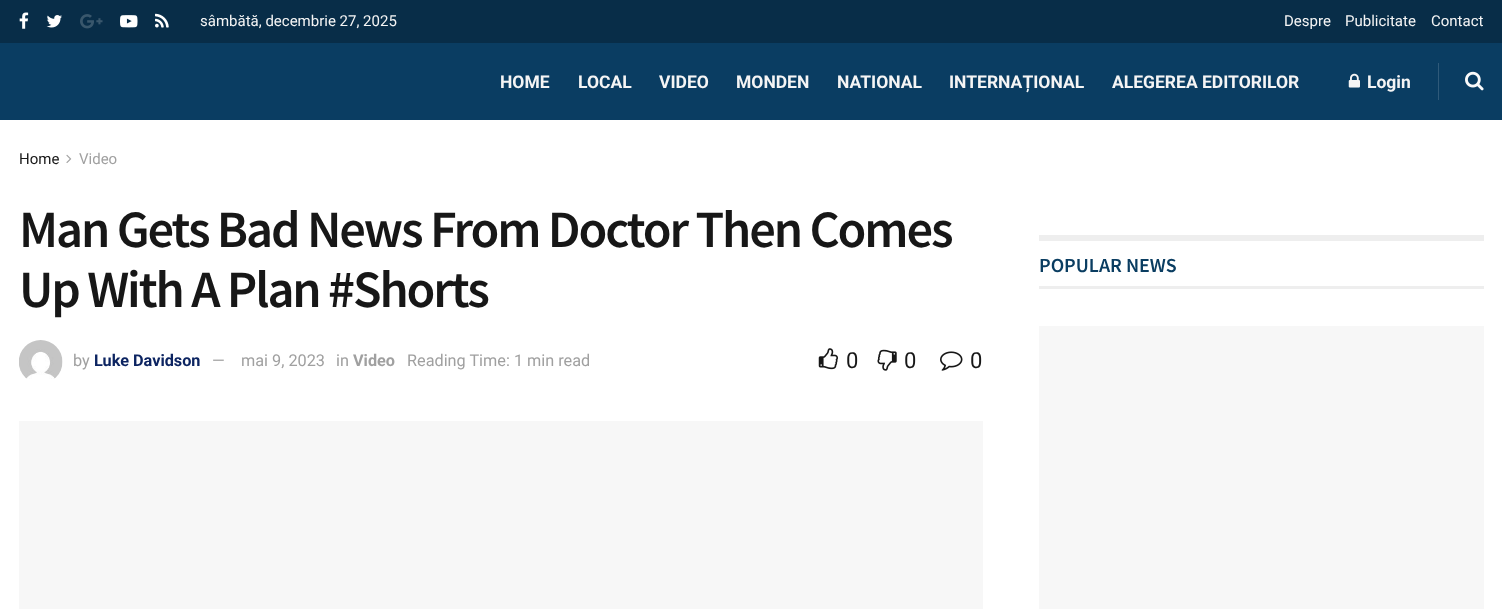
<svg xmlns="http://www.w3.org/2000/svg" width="1502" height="609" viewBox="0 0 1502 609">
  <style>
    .t1 { font: 15px Roboto; fill: #f5f5f5; }
    .t2 { font: bold 17.5px Roboto; fill: #f5f5f5; }
    .t3 { font: 15px Roboto; fill: #171717; }
    .t4 { font: 15px Roboto; fill: #a0a0a0; }
    .t5 { font: 600 52.5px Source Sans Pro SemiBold; letter-spacing: -2.1px; fill: #171717; }
    .t6 { font: 16.25px Roboto; fill: #a0a0a0; }
    .t7 { font: bold 16.25px Roboto; fill: #0c2461; }
    .t8 { font: bold 16.25px Roboto; fill: #a0a0a0; }
    .t9 { font: 22px Roboto; fill: #171717; }
    .t10 { font: 600 20px Source Sans Pro SemiBold; fill: #0a3d61; }
  </style>
  <rect width="100%" height="100%" fill="#fff"/>
  <rect x="0" y="0" width="1502" height="43" fill="#082d48"/>
  <image x="19" y="12" width="10" height="17" href="images/1.png"/>
  <image x="46" y="15" width="16" height="13" href="images/2.png"/>
  <image x="80" y="14" width="23" height="15" href="images/3.png"/>
  <image x="120" y="15" width="18" height="13" href="images/4.png"/>
  <image x="155" y="13" width="14" height="15" href="images/5.png"/>
  <text x="200" y="26" class="t1">sâmbătă, decembrie 27, 2025</text>
  <text x="1284" y="26" class="t1">Despre</text>
  <text x="1345" y="26" class="t1">Publicitate</text>
  <text x="1431" y="26" class="t1">Contact</text>
  <rect x="0" y="43" width="1502" height="77" fill="#0a3d62"/>
  <text x="500" y="88" class="t2">HOME</text>
  <text x="578" y="88" class="t2">LOCAL</text>
  <text x="659" y="88" class="t2">VIDEO</text>
  <text x="736" y="88" class="t2">MONDEN</text>
  <text x="837" y="88" class="t2">NATIONAL</text>
  <text x="949" y="88" class="t2">INTERNAȚIONAL</text>
  <text x="1112" y="88" class="t2">ALEGEREA EDITORILOR</text>
  <image x="1348" y="73" width="12" height="15" href="images/6.png"/>
  <text x="1367" y="88" class="t2">Login</text>
  <rect x="1438" y="63" width="1" height="37" fill="#2f5a7a"/>
  <image x="1465" y="71" width="19" height="20" href="images/7.png"/>
  <text x="19" y="164" class="t3">Home</text>
  <image x="66" y="154" width="6" height="9" href="images/8.png"/>
  <text x="79" y="164" class="t4">Video</text>
  <text x="19" y="247" class="t5">Man Gets Bad News From Doctor Then Comes</text>
  <text x="19" y="307" class="t5">Up With A Plan #Shorts</text>
  <image x="19" y="340" width="44" height="39" href="images/9.png"/>
  <text x="73" y="366" class="t6">by</text>
  <text x="94" y="366" class="t7">Luke Davidson</text>
  <text x="212" y="366" class="t6">—</text>
  <text x="241" y="366" class="t6">mai 9, 2023</text>
  <text x="336" y="366" class="t6">in</text>
  <text x="353" y="366" class="t8">Video</text>
  <text x="407" y="366" class="t6">Reading Time: 1 min read</text>
  <image x="818" y="348" width="20" height="22" href="images/10.png"/>
  <text x="846" y="368" class="t9">0</text>
  <image x="877" y="349" width="20" height="22" href="images/11.png"/>
  <text x="904" y="368" class="t9">0</text>
  <image x="940" y="351" width="23" height="20" href="images/12.png"/>
  <text x="970" y="368" class="t9">0</text>
  <rect x="19" y="421" width="964" height="188" fill="#f7f7f7"/>
  <rect x="1039" y="235" width="445" height="6" fill="#eee"/>
  <rect x="1039" y="286" width="445" height="3" fill="#eee"/>
  <text x="1039" y="272" class="t10">POPULAR NEWS</text>
  <rect x="1039" y="326" width="445" height="283" fill="#f7f7f7"/>
</svg>
